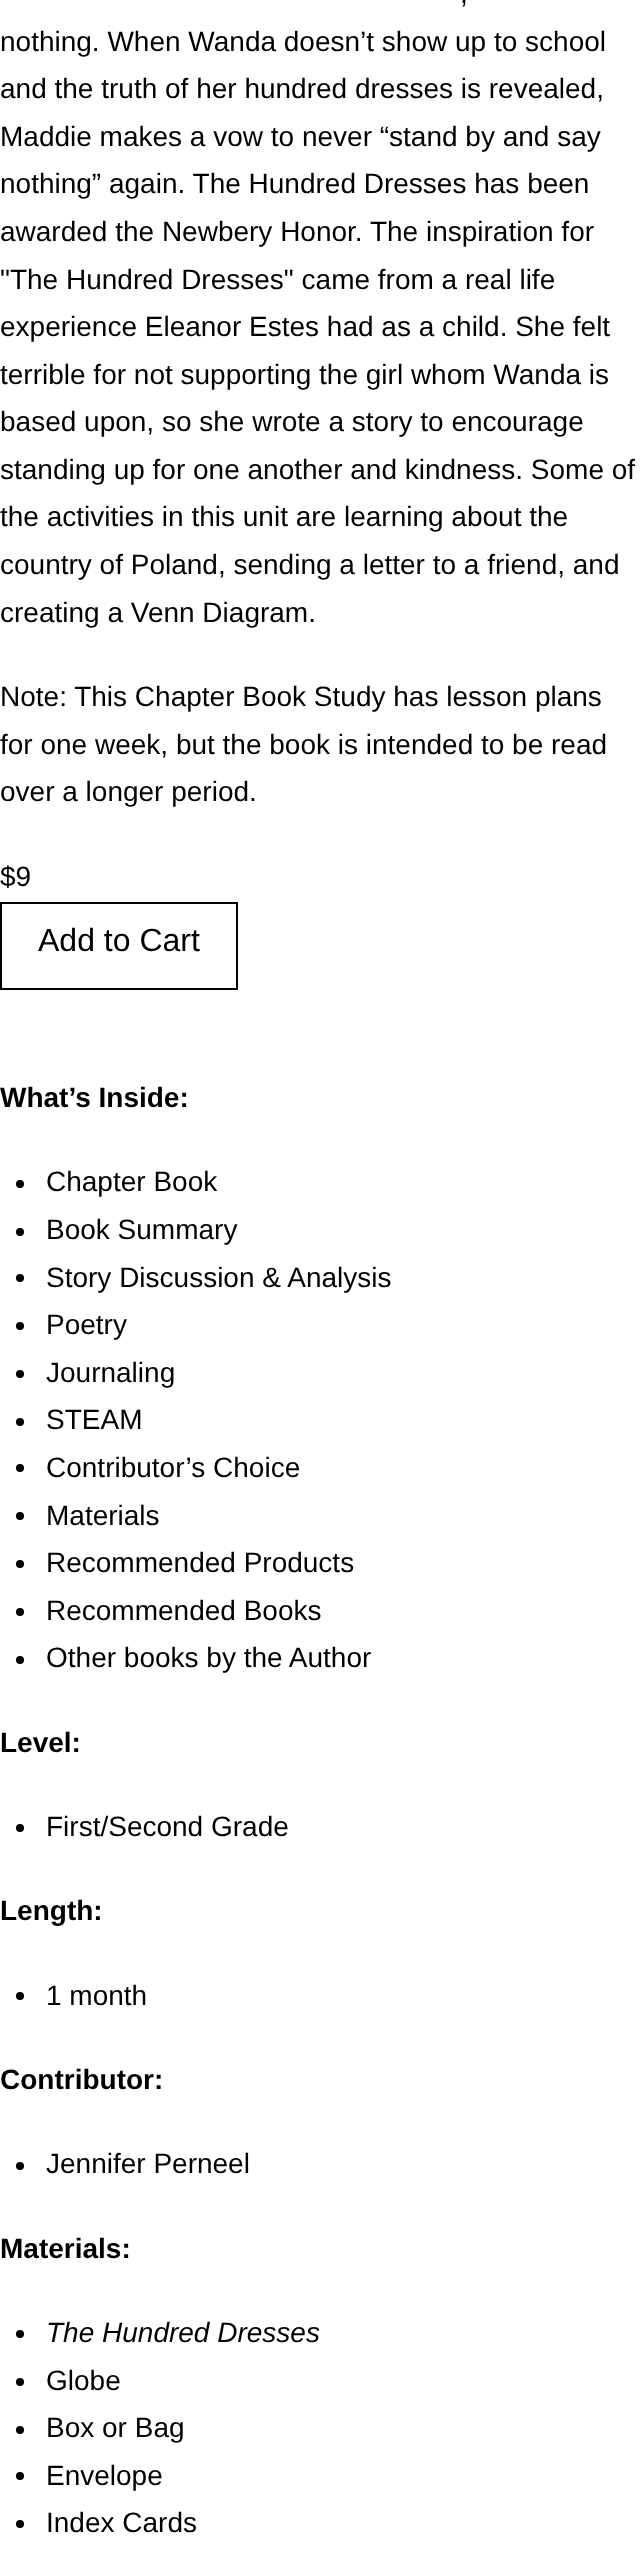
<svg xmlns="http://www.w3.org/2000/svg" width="641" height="2557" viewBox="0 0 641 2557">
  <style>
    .t1 { font: 28px Liberation Sans; fill: #000; }
    .t2 { font: 32px Liberation Sans; fill: #000; }
    .t3 { font: bold 28px Liberation Sans; fill: #000; }
    .t4 { font: italic 28px Liberation Sans; fill: #000; }
  </style>
  <rect width="100%" height="100%" fill="#fff"/>
  <text x="460" y="3" class="t1">,</text>
  <text x="0" y="51" class="t1">nothing. When Wanda doesn’t show up to school</text>
  <text x="0" y="98" class="t1">and the truth of her hundred dresses is revealed,</text>
  <text x="0" y="146" class="t1">Maddie makes a vow to never “stand by and say</text>
  <text x="0" y="193" class="t1">nothing” again. The Hundred Dresses has been</text>
  <text x="0" y="241" class="t1">awarded the Newbery Honor. The inspiration for</text>
  <text x="0" y="289" class="t1">"The Hundred Dresses" came from a real life</text>
  <text x="0" y="336" class="t1">experience Eleanor Estes had as a child. She felt</text>
  <text x="0" y="384" class="t1">terrible for not supporting the girl whom Wanda is</text>
  <text x="0" y="431" class="t1">based upon, so she wrote a story to encourage</text>
  <text x="0" y="479" class="t1">standing up for one another and kindness. Some of</text>
  <text x="0" y="526" class="t1">the activities in this unit are learning about the</text>
  <text x="0" y="574" class="t1">country of Poland, sending a letter to a friend, and</text>
  <text x="0" y="622" class="t1">creating a Venn Diagram.</text>
  <text x="0" y="706" class="t1">Note: This Chapter Book Study has lesson plans</text>
  <text x="0" y="754" class="t1">for one week, but the book is intended to be read</text>
  <text x="0" y="801" class="t1">over a longer period.</text>
  <text x="0" y="886" class="t1">$9</text>
  <rect x="1" y="903" width="236" height="86" fill="none" stroke="#000" stroke-width="2"/>
  <text x="38" y="951" class="t2">Add to Cart</text>
  <text x="0" y="1107" class="t3">What’s Inside:</text>
  <circle cx="20" cy="1184" r="4" fill="#000"/>
  <text x="46" y="1191" class="t1">Chapter Book</text>
  <circle cx="20" cy="1232" r="4" fill="#000"/>
  <text x="46" y="1239" class="t1">Book Summary</text>
  <circle cx="20" cy="1278" r="4" fill="#000"/>
  <text x="46" y="1287" class="t1">Story Discussion &amp; Analysis</text>
  <circle cx="20" cy="1326" r="4" fill="#000"/>
  <text x="46" y="1334" class="t1">Poetry</text>
  <circle cx="20" cy="1374" r="4" fill="#000"/>
  <text x="46" y="1382" class="t1">Journaling</text>
  <circle cx="20" cy="1422" r="4" fill="#000"/>
  <text x="46" y="1429" class="t1">STEAM</text>
  <circle cx="20" cy="1468" r="4" fill="#000"/>
  <text x="46" y="1477" class="t1">Contributor’s Choice</text>
  <circle cx="20" cy="1516" r="4" fill="#000"/>
  <text x="46" y="1525" class="t1">Materials</text>
  <circle cx="20" cy="1564" r="4" fill="#000"/>
  <text x="46" y="1572" class="t1">Recommended Products</text>
  <circle cx="20" cy="1612" r="4" fill="#000"/>
  <text x="46" y="1620" class="t1">Recommended Books</text>
  <circle cx="20" cy="1660" r="4" fill="#000"/>
  <text x="46" y="1667" class="t1">Other books by the Author</text>
  <text x="0" y="1752" class="t3">Level:</text>
  <circle cx="20" cy="1828" r="4" fill="#000"/>
  <text x="46" y="1836" class="t1">First/Second Grade</text>
  <text x="0" y="1920" class="t3">Length:</text>
  <circle cx="20" cy="1996" r="4" fill="#000"/>
  <text x="46" y="2005" class="t1">1 month</text>
  <text x="0" y="2089" class="t3">Contributor:</text>
  <circle cx="20" cy="2166" r="4" fill="#000"/>
  <text x="46" y="2173" class="t1">Jennifer Perneel</text>
  <text x="0" y="2258" class="t3">Materials:</text>
  <circle cx="20" cy="2334" r="4" fill="#000"/>
  <text x="46" y="2342" class="t4">The Hundred Dresses</text>
  <circle cx="20" cy="2382" r="4" fill="#000"/>
  <text x="46" y="2390" class="t1">Globe</text>
  <circle cx="20" cy="2430" r="4" fill="#000"/>
  <text x="46" y="2437" class="t1">Box or Bag</text>
  <circle cx="20" cy="2476" r="4" fill="#000"/>
  <text x="46" y="2485" class="t1">Envelope</text>
  <circle cx="20" cy="2524" r="4" fill="#000"/>
  <text x="46" y="2532" class="t1">Index Cards</text>
</svg>
